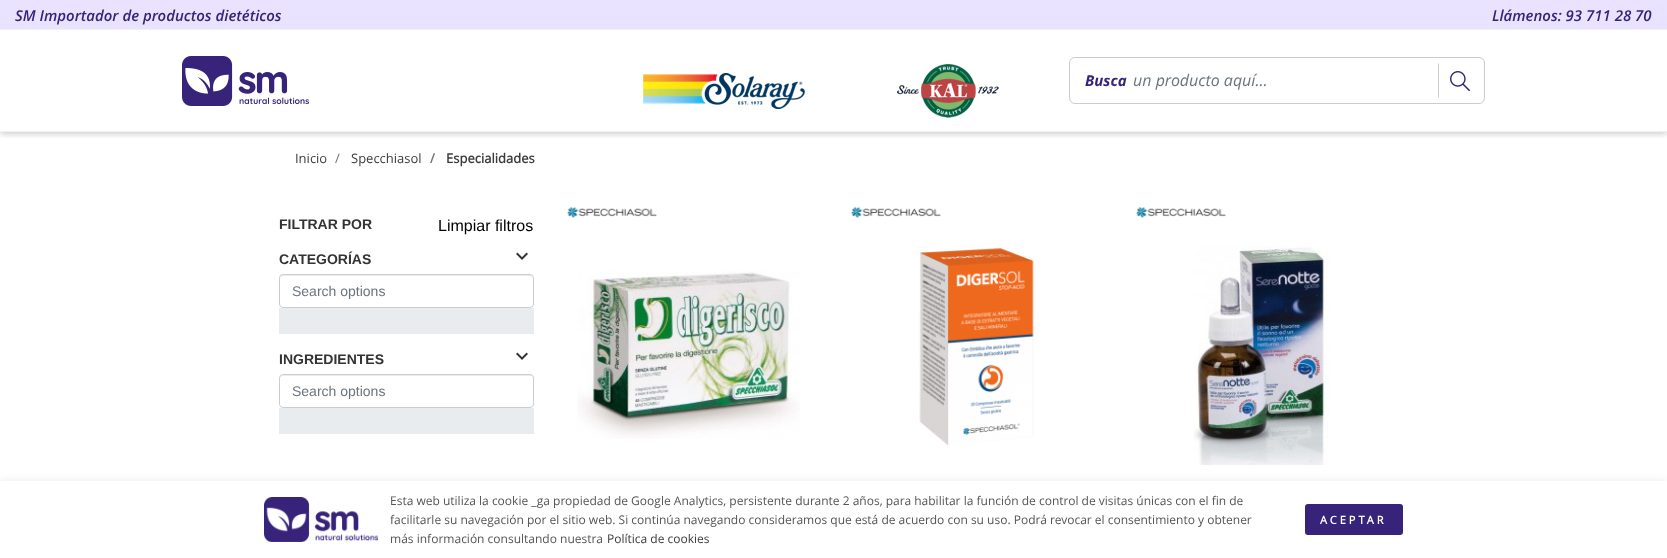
<svg xmlns="http://www.w3.org/2000/svg" width="1667" height="558" viewBox="0 0 1667 558">
  <style>
    .t1 { font: italic 600 15px Open Sans; fill: #37247a; }
    .t2 { font: italic bold 15px Open Sans; fill: #37247a; }
    .t3 { font: italic 16px Open Sans; fill: #6c757d; }
    .t4 { font: 13px Open Sans; fill: #3b3b3b; }
    .t5 { font: 13px Open Sans; fill: #6c757d; }
    .t6 { font: bold 13px Open Sans; fill: #6c757d; }
    .t7 { font: bold 13px Open Sans; fill: #3b3b3b; }
    .t8 { font: bold 14px Liberation Sans; fill: #333; }
    .t9 { font: 16px Liberation Sans; fill: #000; }
    .t10 { font: 14px Liberation Sans; fill: #6c757d; }
    .t11 { font: 12px Open Sans; fill: #545655; }
    .t12 { font: 12px Open Sans; fill: #3b3b3b; }
    .t13 { font: bold 11px Open Sans; letter-spacing: 3px; fill: #fff; }
  </style>
  <defs>
    <clipPath id="clip1"><rect x="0" y="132" width="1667" height="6"/></clipPath>
  </defs>
  <rect width="100%" height="100%" fill="#fff"/>
  <g clip-path="url(#clip1)">
    <rect x="0" y="2" width="1667" height="132" fill="#00000033" filter="blur(3px)"/>
  </g>
  <rect x="0" y="0" width="1667" height="29" fill="#e9e3ff"/>
  <rect x="0" y="29" width="1667" height="1" fill="#f1f1f1"/>
  <text x="15" y="21" class="t1">SM Importador de productos dietéticos</text>
  <text x="1492" y="21" class="t1">Llámenos: 93 711 28 70</text>
  <rect x="0" y="131" width="1667" height="1" fill="#f1f1f1"/>
  <image x="182" y="56" width="127" height="50" href="images/1.png"/>
  <image x="643" y="73" width="162" height="36" href="images/2.png"/>
  <image x="897" y="64" width="102" height="54" href="images/3.png"/>
  <rect x="1069.5" y="57.5" width="415" height="46" rx="5.5" fill="none" stroke="#ccc"/>
  <text x="1085" y="86" class="t2">Busca</text>
  <text x="1133" y="86" class="t3">un producto aquí...</text>
  <path d="M1438 98V63L1439 64V97Z" fill="#ccc"/>
  <image x="1450" y="71" width="20" height="20" href="images/4.png"/>
  <text x="295" y="163" class="t4">Inicio</text>
  <text x="335" y="163" class="t5">/</text>
  <text x="351" y="163" class="t4">Specchiasol</text>
  <text x="430" y="163" class="t6">/</text>
  <text x="446" y="163" class="t7">Especialidades</text>
  <text x="279" y="229" class="t8">FILTRAR POR</text>
  <text x="438" y="231" class="t9">Limpiar filtros</text>
  <text x="279" y="264" class="t8">CATEGORÍAS</text>
  <image x="516" y="252" width="12" height="8" href="images/5.png"/>
  <path d="M283 276H531L533 277V279C533 277 532 275 530 275H283C281 275 280 277 280 279C280 277 281 276 283 276Z" fill="#ececec"/>
  <rect x="279.5" y="274.5" width="254" height="33" rx="3.5" fill="none" stroke="#ccc"/>
  <text x="292" y="296" class="t10">Search options</text>
  <rect x="279" y="308" width="255" height="26" fill="#e9ecef"/>
  <text x="279" y="364" class="t8">INGREDIENTES</text>
  <image x="516" y="352" width="12" height="8" href="images/5.png"/>
  <path d="M283 376H531L533 377V379C533 377 532 375 530 375H283C281 375 280 377 280 379C280 377 281 376 283 376Z" fill="#ececec"/>
  <rect x="279.5" y="374.5" width="254" height="33" rx="3.5" fill="none" stroke="#ccc"/>
  <text x="292" y="396" class="t10">Search options</text>
  <rect x="279" y="408" width="255" height="26" fill="#e9ecef"/>
  <image x="567" y="207" width="90" height="11" href="images/6.png"/>
  <image x="577" y="271" width="223" height="168" href="images/7.png"/>
  <image x="851" y="207" width="90" height="11" href="images/6.png"/>
  <image x="919" y="248" width="115" height="198" href="images/8.png"/>
  <image x="1136" y="207" width="90" height="11" href="images/6.png"/>
  <image x="1193" y="246" width="136" height="219" href="images/9.png"/>
  <rect x="0" y="482" width="1667" height="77" fill="#0000001a" filter="blur(5px)"/>
  <rect x="0" y="481" width="1667" height="77" fill="#fff"/>
  <image x="264" y="497" width="114" height="45" href="images/10.png"/>
  <text x="390" y="505" class="t11">Esta web utiliza la cookie _ga propiedad de Google Analytics, persistente durante 2 años, para habilitar la función de control de visitas únicas con el fin de</text>
  <text x="390" y="524" class="t11">facilitarle su navegación por el sitio web. Si continúa navegando consideramos que está de acuerdo con su uso. Podrá revocar el consentimiento y obtener</text>
  <text x="390" y="543" class="t11">más información consultando nuestra</text>
  <text x="607" y="543" class="t12">Política de cookies</text>
  <rect x="1305" y="504" width="98" height="31" rx="3" fill="#37247a"/>
  <text x="1320" y="524" class="t13">ACEPTAR</text>
</svg>
